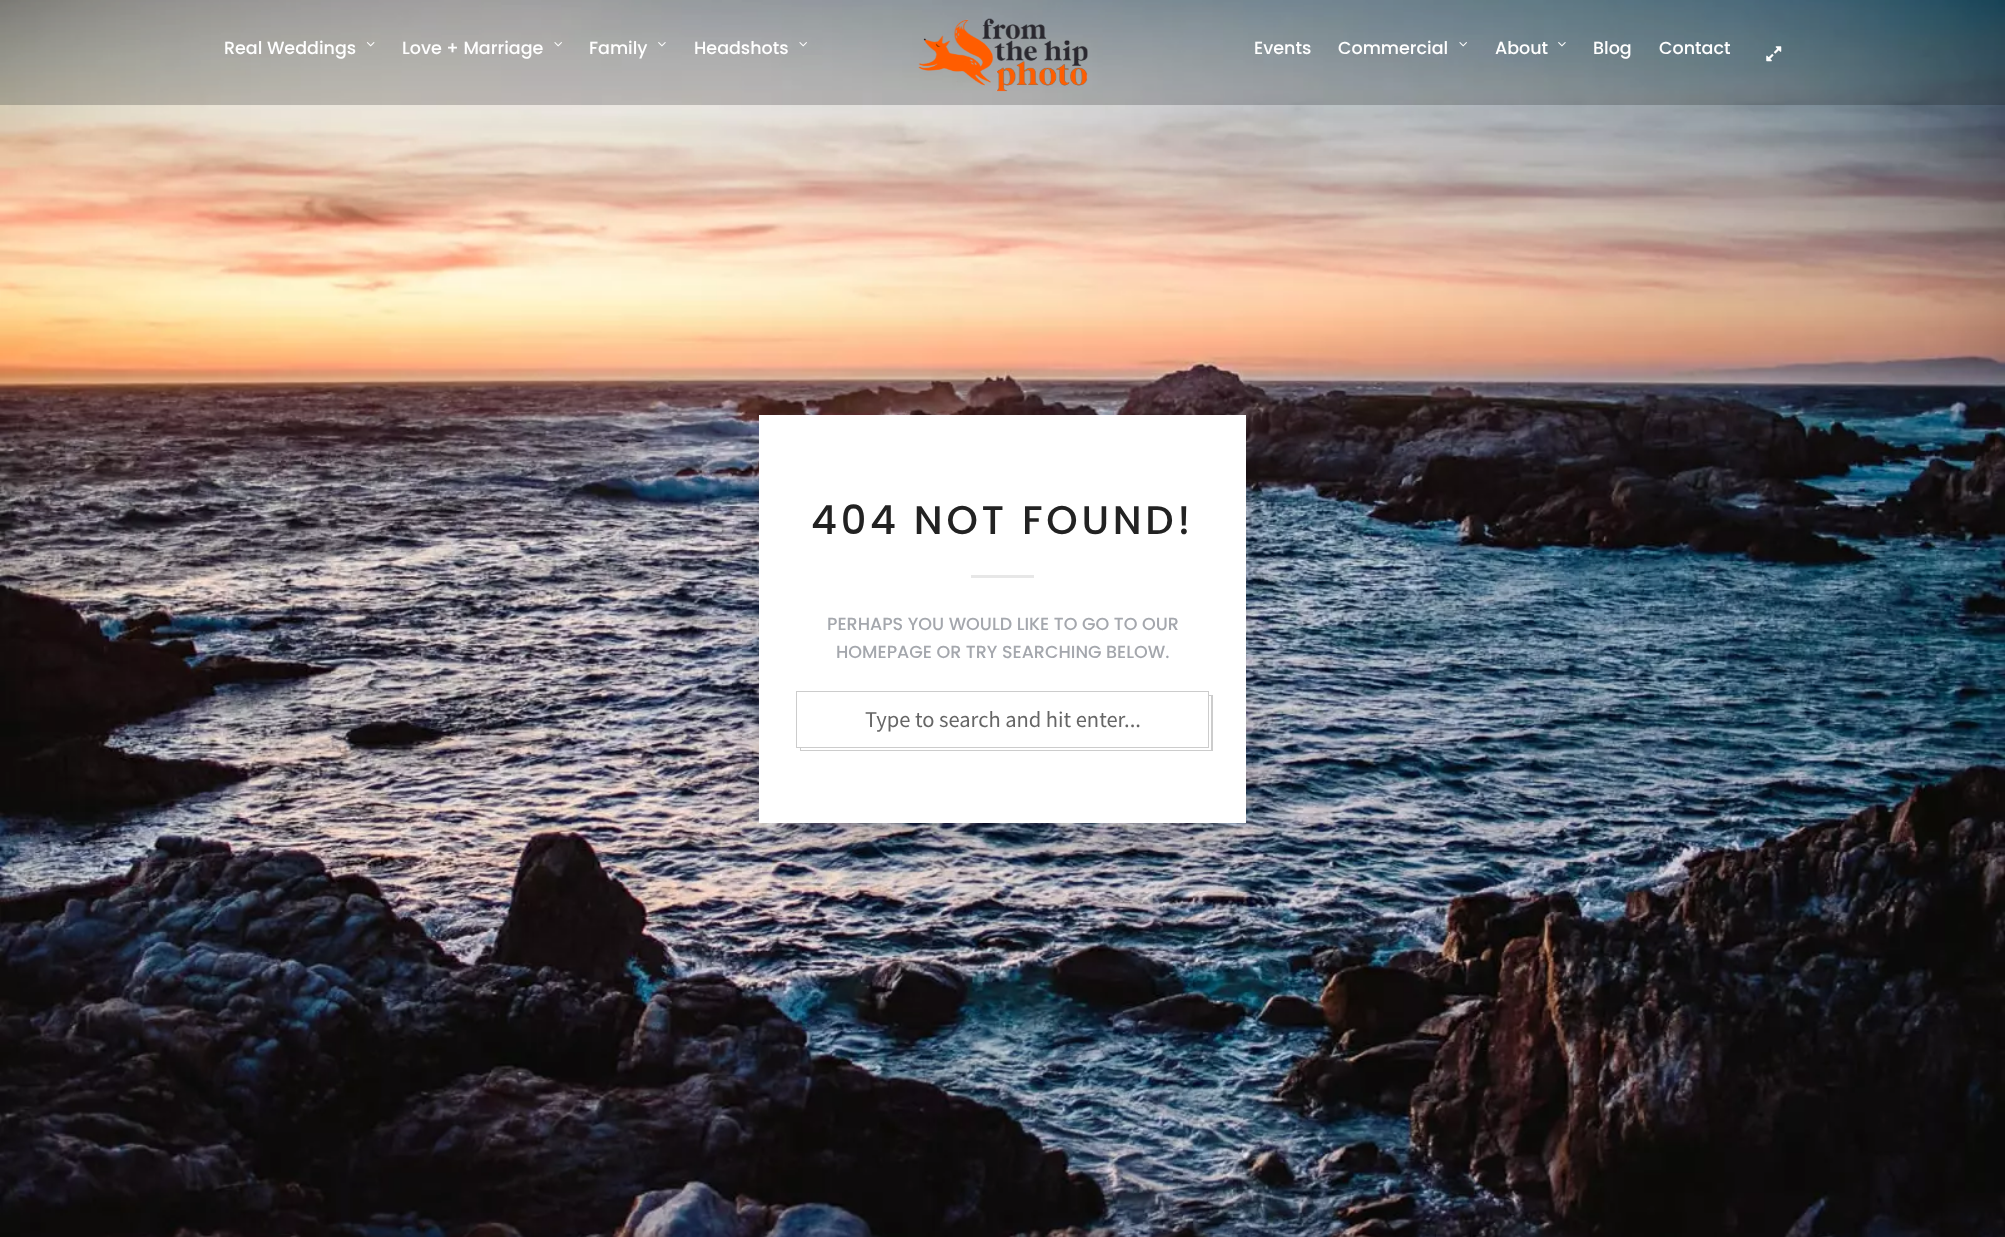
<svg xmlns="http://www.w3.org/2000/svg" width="2005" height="1237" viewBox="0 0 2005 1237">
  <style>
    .t1 { font: 500 17.5px Poppins; fill: #fff; }
    .t2 { font: 500 40px Poppins; letter-spacing: 3.75px; fill: #222; }
    .t3 { font: 500 17.5px Poppins; fill: #a4a7ad; }
    .t4 { font: 22.5px Source Sans Pro; fill: #666; }
  </style>
  <rect width="100%" height="100%" fill="#fff"/>
  <image x="0" y="0" width="2005" height="1237" href="images/9.png"/>
  <rect x="0" y="0" width="2005" height="105" fill="#00000033"/>
  <image x="918" y="18" width="170" height="74" href="images/1.png"/>
  <text x="224" y="54" class="t1">Real Weddings</text>
  <image x="366" y="42" width="9" height="5" href="images/2.png"/>
  <text x="402" y="54" class="t1">Love + Marriage</text>
  <image x="554" y="42" width="8" height="5" href="images/3.png"/>
  <text x="589" y="54" class="t1">Family</text>
  <image x="658" y="42" width="8" height="5" href="images/4.png"/>
  <text x="694" y="54" class="t1">Headshots</text>
  <image x="799" y="42" width="8" height="5" href="images/5.png"/>
  <text x="1254" y="54" class="t1">Events</text>
  <text x="1338" y="54" class="t1">Commercial</text>
  <image x="1459" y="42" width="8" height="5" href="images/6.png"/>
  <text x="1495" y="54" class="t1">About</text>
  <image x="1558" y="42" width="8" height="5" href="images/7.png"/>
  <text x="1593" y="54" class="t1">Blog</text>
  <text x="1659" y="54" class="t1">Contact</text>
  <image x="1766" y="46" width="16" height="16" href="images/8.png"/>
  <rect x="759" y="443" width="487" height="407" fill="#00000026" filter="blur(25px)"/>
  <rect x="759" y="415" width="487" height="408" fill="#fff"/>
  <text x="811" y="534" class="t2">404 NOT FOUND!</text>
  <rect x="971" y="575" width="63" height="3" fill="#e7e7e7"/>
  <text x="827" y="630" class="t3">PERHAPS YOU WOULD LIKE TO GO TO OUR</text>
  <text x="836" y="658" class="t3">HOMEPAGE OR TRY SEARCHING BELOW.</text>
  <path d="M800 748V751H1213V695H1209V748Z" fill="#ccc"/>
  <path d="M801 748V750H1211V696H1209V748Z" fill="#fff"/>
  <rect x="796.5" y="691.5" width="412" height="56" fill="none" stroke="#ccc"/>
  <text x="865" y="727" class="t4">Type to search and hit enter...</text>
</svg>
